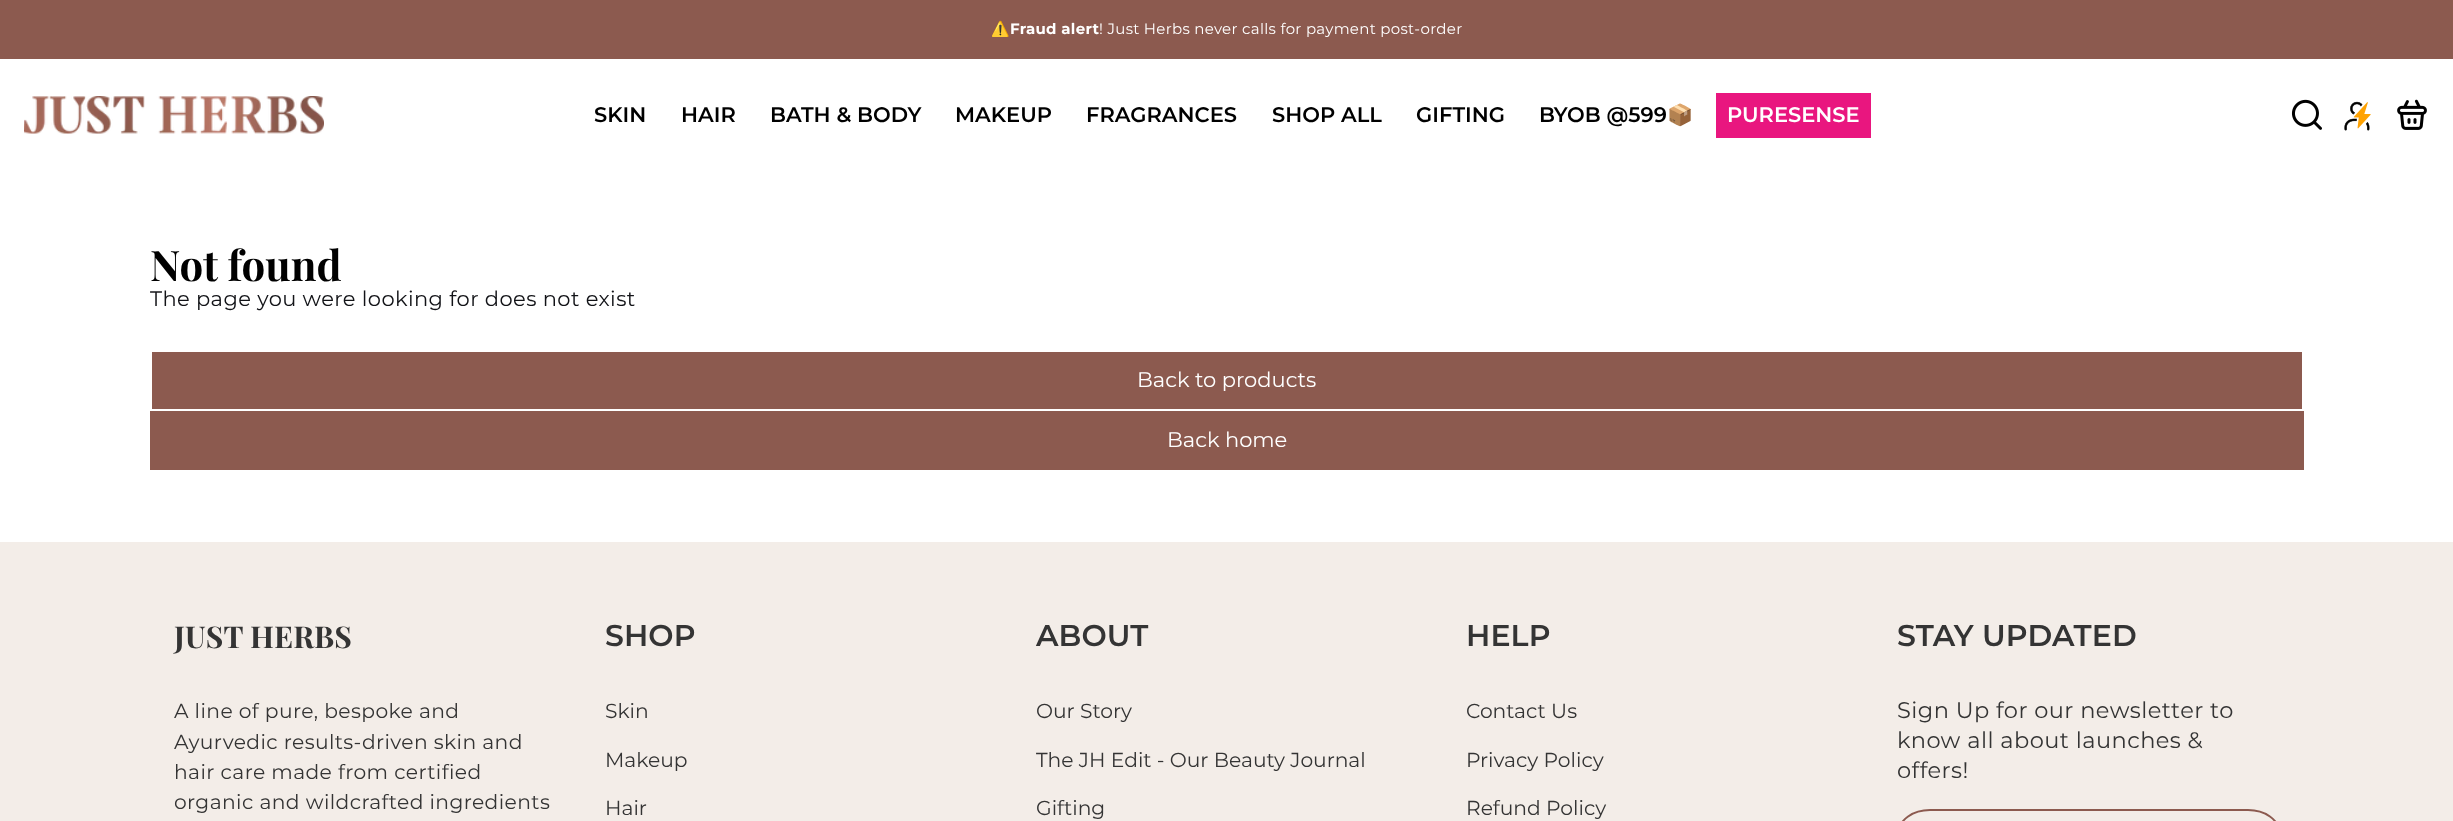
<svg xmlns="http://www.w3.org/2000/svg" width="2453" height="821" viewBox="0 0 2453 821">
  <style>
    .t1 { font: 15px Noto Color Emoji; letter-spacing: 0.3px; fill: #fff; }
    .t2 { font: bold 15px Montserrat; letter-spacing: 0.3px; fill: #fff; }
    .t3 { font: 15px Montserrat; letter-spacing: 0.3px; fill: #fff; }
    .t4 { font: 600 21px Montserrat; fill: #000; }
    .t5 { font: bold 21px Noto Color Emoji; fill: #000; }
    .t6 { font: 600 21px Montserrat; fill: #fff; }
    .t7 { font: bold 42px Playfair Display; fill: #000; }
    .t8 { font: 21px Montserrat; letter-spacing: 0.4px; fill: #121317; }
    .t9 { font: 21px Montserrat; fill: #fff; }
    .t10 { font: bold 30px Playfair Display; letter-spacing: 0.1px; fill: #343434; }
    .t11 { font: 20.25px Montserrat; letter-spacing: 0.4px; fill: #343434; }
    .t12 { font: 600 30px Montserrat; letter-spacing: 0.1px; fill: #343434; }
    .t13 { font: 20.25px Montserrat; fill: #343434; }
    .t14 { font: 22.5px Montserrat; letter-spacing: 0.45px; fill: #343434; }
  </style>
  <defs>
    <clipPath id="clip1"><rect x="992" y="3" width="471" height="53"/></clipPath>
  </defs>
  <rect width="100%" height="100%" fill="#fff"/>
  <rect x="0" y="0" width="2453" height="59" fill="#8c5a4f"/>
  <g clip-path="url(#clip1)">
    <text x="991" y="34" class="t1">⚠️</text>
  </g>
  <text x="1010" y="34" class="t2">Fraud alert</text>
  <text x="1099" y="34" class="t3">! Just Herbs never calls for payment post-order</text>
  <image x="24" y="96" width="300" height="38" href="images/1.png"/>
  <text x="594" y="122" class="t4">SKIN</text>
  <text x="681" y="122" class="t4">HAIR</text>
  <text x="770" y="122" class="t4">BATH &amp; BODY</text>
  <text x="955" y="122" class="t4">MAKEUP</text>
  <text x="1086" y="122" class="t4">FRAGRANCES</text>
  <text x="1272" y="122" class="t4">SHOP ALL</text>
  <text x="1416" y="122" class="t4">GIFTING</text>
  <text x="1539" y="122" class="t4">BYOB @599</text>
  <text x="1667" y="122" class="t5">📦</text>
  <rect x="1716" y="93" width="155" height="45" fill="#e9167f"/>
  <text x="1727" y="122" class="t6">PURESENSE</text>
  <image x="2291" y="99" width="31" height="31" href="images/2.png"/>
  <image x="2344" y="101" width="27" height="30" href="images/3.png"/>
  <image x="2397" y="99" width="30" height="31" href="images/4.png"/>
  <text x="150" y="281" class="t7">Not found</text>
  <text x="150" y="306" class="t8">The page you were looking for does not exist</text>
  <rect x="152" y="352" width="2150" height="57" fill="#8c5a4f"/>
  <text x="1137" y="387" class="t9">Back to products</text>
  <rect x="150" y="411" width="2154" height="59" fill="#8c5a4f"/>
  <text x="1167" y="447" class="t9">Back home</text>
  <rect x="0" y="542" width="2453" height="279" fill="#f3ede8"/>
  <text x="174" y="648" class="t10">JUST HERBS</text>
  <text x="174" y="718" class="t11">A line of pure, bespoke and</text>
  <text x="174" y="749" class="t11">Ayurvedic results-driven skin and</text>
  <text x="174" y="779" class="t11">hair care made from certified</text>
  <text x="174" y="809" class="t11">organic and wildcrafted ingredients</text>
  <text x="605" y="646" class="t12">SHOP</text>
  <text x="605" y="718" class="t13">Skin</text>
  <text x="605" y="767" class="t13">Makeup</text>
  <text x="605" y="815" class="t13">Hair</text>
  <text x="1036" y="646" class="t12">ABOUT</text>
  <text x="1036" y="718" class="t13">Our Story</text>
  <text x="1036" y="767" class="t13">The JH Edit - Our Beauty Journal</text>
  <text x="1036" y="815" class="t13">Gifting</text>
  <text x="1466" y="646" class="t12">HELP</text>
  <text x="1466" y="718" class="t13">Contact Us</text>
  <text x="1466" y="767" class="t13">Privacy Policy</text>
  <text x="1466" y="815" class="t13">Refund Policy</text>
  <text x="1897" y="646" class="t12">STAY UPDATED</text>
  <text x="1897" y="718" class="t14">Sign Up for our newsletter to</text>
  <text x="1897" y="748" class="t14">know all about launches &amp;</text>
  <text x="1897" y="778" class="t14">offers!</text>
  <rect x="1899" y="810" width="380" height="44" rx="31" fill="none" stroke="#8c5a4f" stroke-width="2"/>
</svg>
